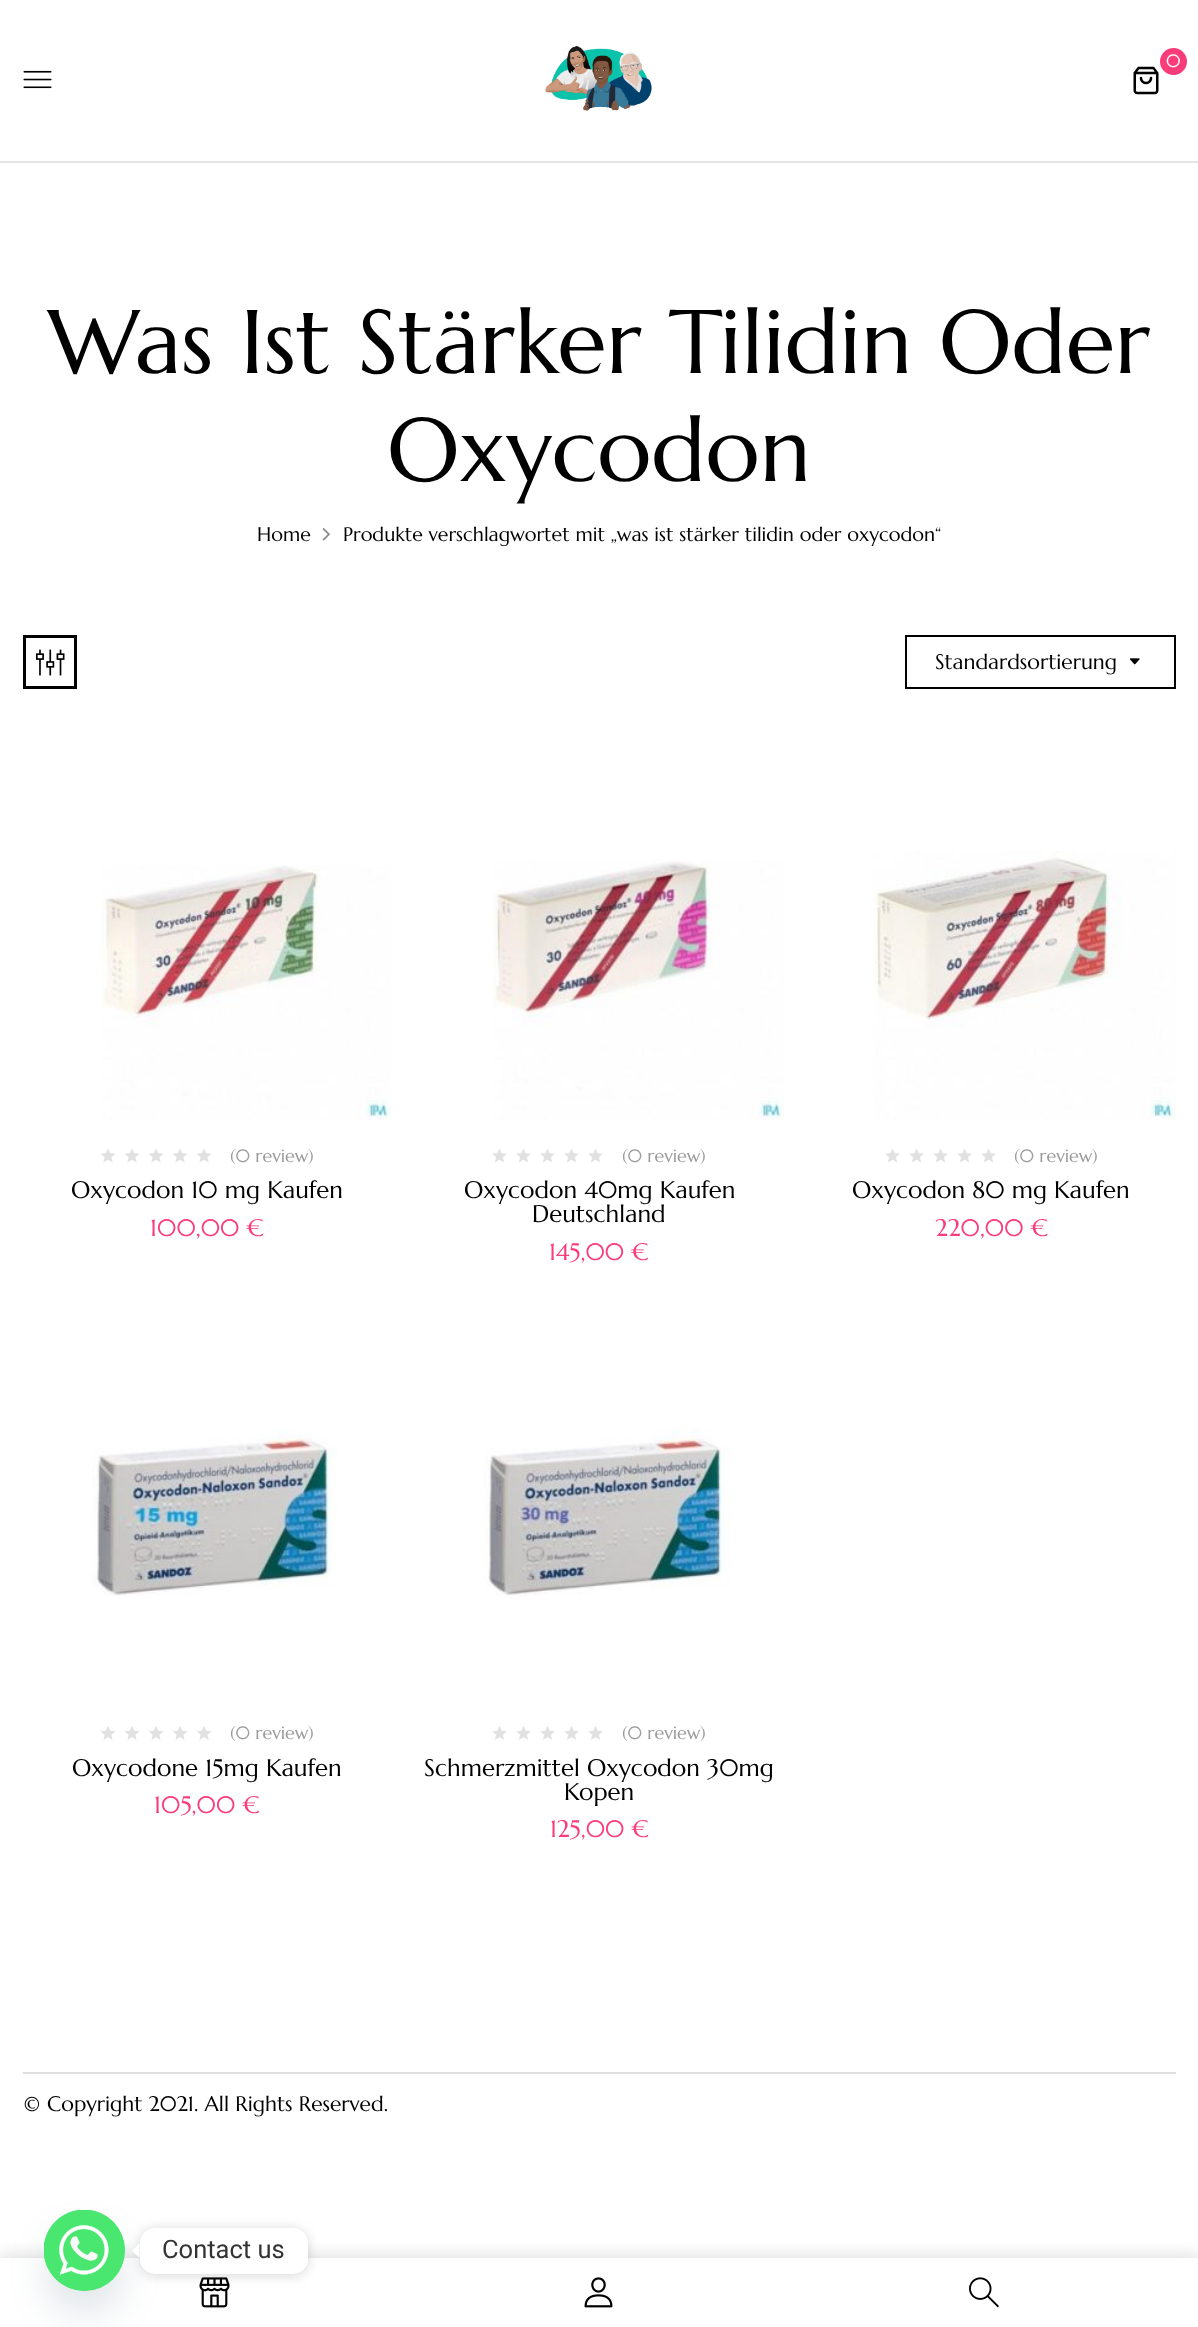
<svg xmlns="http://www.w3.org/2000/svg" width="1198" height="2327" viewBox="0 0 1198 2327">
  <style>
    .t1 { font: 18px Marcellus; fill: #fff; }
    .t2 { font: 90px Marcellus; fill: #000; }
    .t3 { font: 19.5px Marcellus; fill: #000; }
    .t4 { font: 21px Marcellus; fill: #000; }
    .t5 { font: 18px Marcellus; fill: #9b9b9b; }
    .t6 { font: 24px Marcellus; fill: #000; }
    .t7 { font: 24px Marcellus; fill: #fa3c7a; }
    .t8 { font: 25.5px Roboto; fill: #333; }
  </style>
  <defs>
    <clipPath id="clip1"><rect x="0" y="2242" width="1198" height="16"/></clipPath>
  </defs>
  <rect width="100%" height="100%" fill="#fff"/>
  <rect x="0" y="161" width="1198" height="2" fill="#e5e5e5"/>
  <image x="545" y="46" width="107" height="65" href="images/1.png"/>
  <circle cx="1173.5" cy="61.5" r="13.5" fill="#fa3c7a"/>
  <text x="1166" y="67" class="t1">0</text>
  <image x="1133" y="66" width="26" height="29" href="images/2.png"/>
  <image x="23" y="70" width="29" height="19" href="images/3.png"/>
  <g clip-path="url(#clip1)">
    <rect x="-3" y="2256" width="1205" height="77" fill="#8f8f8f4d" filter="blur(9px)"/>
  </g>
  <image x="199" y="2277" width="31" height="31" href="images/4.png"/>
  <image x="584" y="2277" width="29" height="31" href="images/5.png"/>
  <image x="969" y="2277" width="30" height="31" href="images/6.png"/>
  <text x="48" y="373" class="t2">Was Ist Stärker Tilidin Oder</text>
  <text x="387" y="481" class="t2">Oxycodon</text>
  <text x="257" y="541" class="t3">Home</text>
  <image x="322" y="528" width="8" height="13" href="images/7.png"/>
  <text x="343" y="541" class="t3">Produkte verschlagwortet mit „was ist stärker tilidin oder oxycodon“</text>
  <rect x="24.5" y="636.5" width="51" height="51" fill="none" stroke="#000" stroke-width="3"/>
  <image x="36" y="649" width="29" height="27" href="images/8.png"/>
  <rect x="906" y="636" width="269" height="52" fill="none" stroke="#000" stroke-width="2"/>
  <text x="935" y="669" class="t4">Standardsortierung</text>
  <image x="1129" y="658" width="11" height="7" href="images/9.png"/>
  <image x="101" y="865" width="290" height="255" href="images/10.png"/>
  <image x="101" y="1148" width="110" height="15" href="images/11.png"/>
  <text x="230" y="1162" class="t5">(0 review)</text>
  <text x="71" y="1198" class="t6">Oxycodon 10 mg Kaufen</text>
  <text x="150" y="1236" class="t7">100,00 €</text>
  <image x="493" y="860" width="291" height="260" href="images/12.png"/>
  <image x="492" y="1148" width="111" height="15" href="images/13.png"/>
  <text x="622" y="1162" class="t5">(0 review)</text>
  <text x="464" y="1198" class="t6">Oxycodon 40mg Kaufen</text>
  <text x="532" y="1222" class="t6">Deutschland</text>
  <text x="549" y="1260" class="t7">145,00 €</text>
  <image x="873" y="851" width="303" height="269" href="images/14.png"/>
  <image x="885" y="1148" width="111" height="15" href="images/13.png"/>
  <text x="1014" y="1162" class="t5">(0 review)</text>
  <text x="852" y="1198" class="t6">Oxycodon 80 mg Kaufen</text>
  <text x="935" y="1236" class="t7">220,00 €</text>
  <image x="91" y="1430" width="246" height="166" href="images/15.png"/>
  <image x="101" y="1726" width="111" height="14" href="images/16.png"/>
  <text x="230" y="1739" class="t5">(0 review)</text>
  <text x="72" y="1776" class="t6">Oxycodone 15mg Kaufen</text>
  <text x="154" y="1813" class="t7">105,00 €</text>
  <image x="483" y="1428" width="247" height="168" href="images/17.png"/>
  <image x="492" y="1726" width="111" height="14" href="images/18.png"/>
  <text x="622" y="1739" class="t5">(0 review)</text>
  <text x="424" y="1776" class="t6">Schmerzmittel Oxycodon 30mg</text>
  <text x="564" y="1800" class="t6">Kopen</text>
  <text x="550" y="1837" class="t7">125,00 €</text>
  <rect x="23" y="2072" width="1153" height="2" fill="#dedede"/>
  <text x="23" y="2111" class="t4">© Copyright 2021. All Rights Reserved.</text>
  <rect x="44" y="2234" width="81" height="81" rx="40.5" fill="#49687e29" filter="blur(18px)"/>
  <circle cx="84.5" cy="2250.5" r="40.5" fill="#49e670"/>
  <image x="44" y="2210" width="81" height="81" href="images/19.png"/>
  <rect x="140" y="2229" width="168" height="47" rx="15" fill="#00000026" filter="blur(6px)"/>
  <rect x="140" y="2228" width="168" height="46" rx="15" fill="#fff"/>
  <path d="M139.5 2243V2258L132 2251Z" fill="#fff"/>
  <text x="162" y="2258" class="t8">Contact us</text>
</svg>
